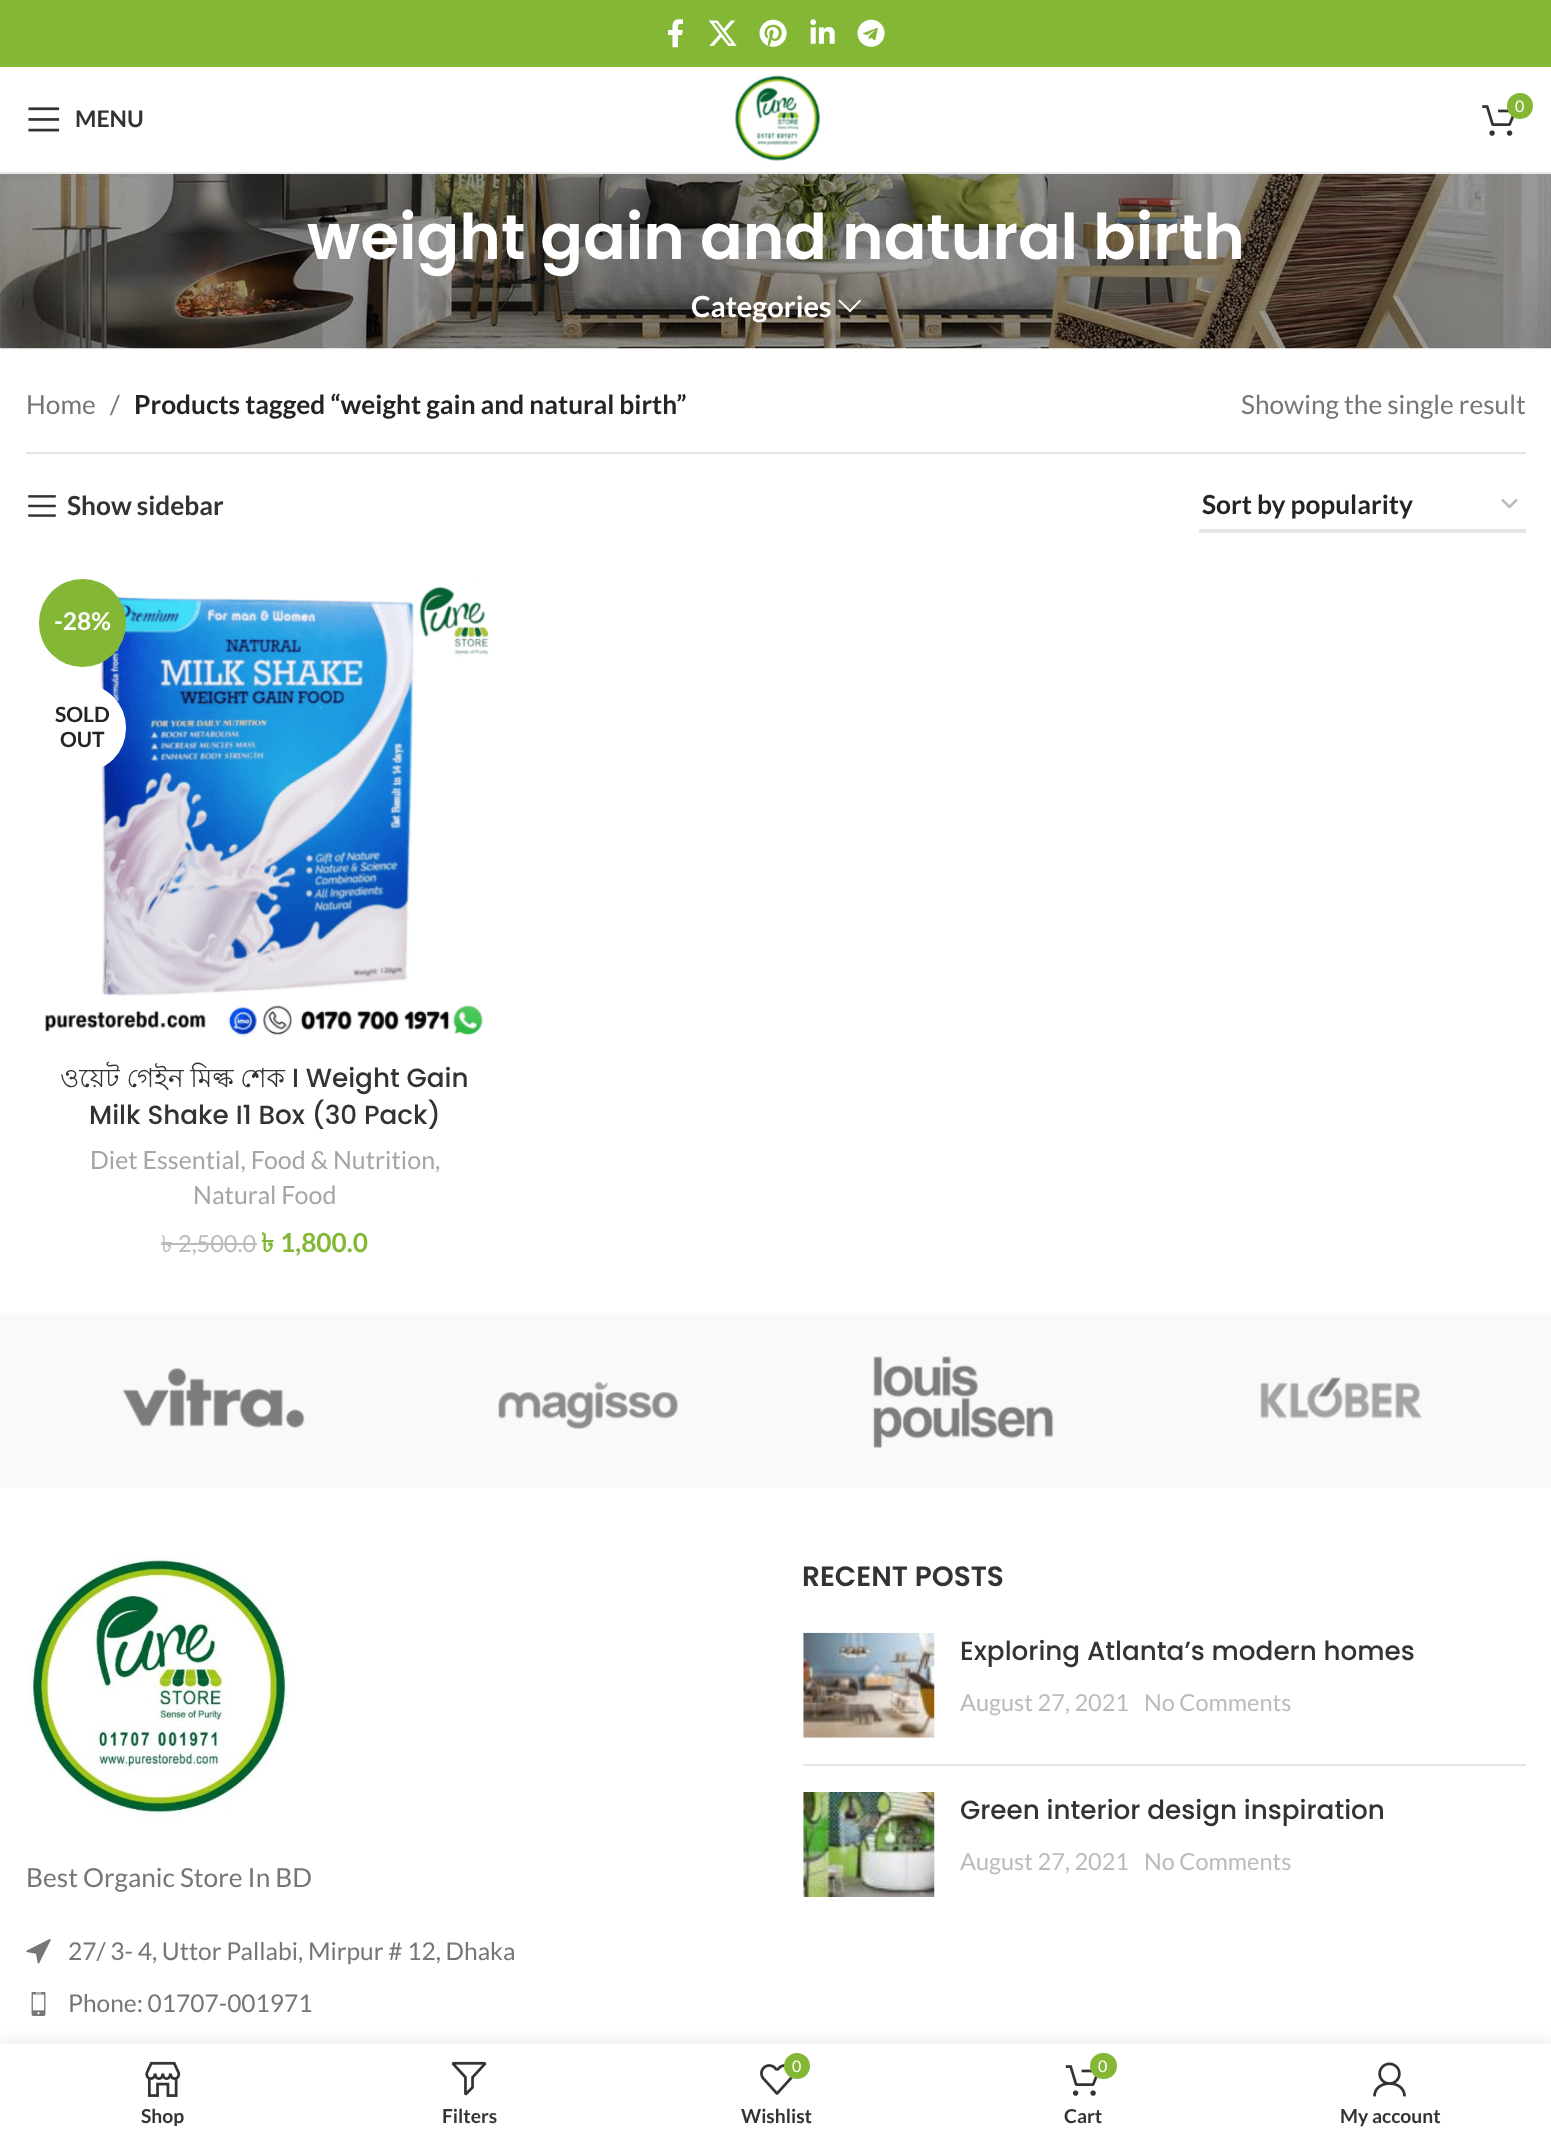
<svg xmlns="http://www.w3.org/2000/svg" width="1551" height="2140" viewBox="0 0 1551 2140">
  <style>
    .t1 { font: 16px Lato; fill: #fff; }
    .t2 { font: bold 23px Lato; fill: #333; }
    .t3 { font: 600 63px Poppins; fill: #fff; }
    .t4 { font: bold 29px Lato; fill: #fff; }
    .t5 { font: 26.25px Lato; fill: #767676; }
    .t6 { font: bold 26.25px Lato; fill: #242424; }
    .t7 { font: bold 26.25px Lato; fill: #333; }
    .t8 { font: bold 24.5px Lato; fill: #fff; }
    .t9 { font: bold 21px Lato; fill: #242424; }
    .t10 { font: 26.25px Lohit Bengali; fill: #333; }
    .t11 { font: 500 26.25px Poppins; fill: #333; }
    .t12 { font: 25px Lato; fill: #a5a5a5; }
    .t13 { font: 23.5px Lohit Bengali; fill: #bbb; }
    .t14 { font: 23.5px Lato; fill: #bbb; }
    .t15 { font: bold 26.25px Lohit Bengali; fill: #83b735; }
    .t16 { font: bold 26.25px Lato; fill: #83b735; }
    .t17 { font: 600 28px Poppins; fill: #333; }
    .t18 { font: 24.5px Lato; fill: #767676; }
    .t19 { font: bold 19.25px Lato; fill: #333; }
  </style>
  <defs>
    <clipPath id="clip1"><rect x="26" y="2104" width="272" height="22"/></clipPath>
  </defs>
  <rect width="100%" height="100%" fill="#fff"/>
  <rect x="0" y="0" width="1551" height="67" fill="#83b735"/>
  <image x="668" y="19" width="15" height="29" href="images/1.png"/>
  <image x="708" y="20" width="29" height="26" href="images/2.png"/>
  <image x="759" y="19" width="28" height="28" href="images/3.png"/>
  <image x="810" y="19" width="25" height="25" href="images/4.png"/>
  <image x="857" y="19" width="28" height="28" href="images/5.png"/>
  <rect x="0" y="172" width="1551" height="2" fill="#e8e8e8"/>
  <image x="735" y="75" width="86" height="86" href="images/6.png"/>
  <image x="1482" y="105" width="32" height="31" href="images/7.png"/>
  <circle cx="1520" cy="106" r="13" fill="#83b735"/>
  <text x="1515" y="112" class="t1">0</text>
  <image x="28" y="107" width="32" height="25" href="images/8.png"/>
  <text x="75" y="127" class="t2">MENU</text>
  <image x="0" y="174" width="1551" height="175" href="images/9.png"/>
  <text x="307" y="259" class="t3">weight gain and natural birth</text>
  <text x="691" y="317" class="t4">Categories</text>
  <path d="M860 299.5L850 309.5L839.5 299.5L838.5 301L850 312.5L861 301Z" fill="#fff"/>
  <rect x="26" y="452" width="1500" height="2" fill="#e4e4e4"/>
  <text x="26" y="414" class="t5">Home</text>
  <text x="110" y="414" class="t5">/</text>
  <text x="134" y="414" class="t6">Products tagged “weight gain and natural birth”</text>
  <text x="1241" y="414" class="t5">Showing the single result</text>
  <image x="28" y="495" width="28" height="22" href="images/10.png"/>
  <text x="67" y="515" class="t7">Show sidebar</text>
  <path d="M1502 499.5L1509.5 507L1517 499.5" fill="none" stroke="#bbb" stroke-width="2.5"/>
  <rect x="1199" y="529" width="327" height="4" fill="#e6e6e6"/>
  <text x="1202" y="514" class="t6">Sort by popularity</text>
  <image x="45" y="580" width="444" height="457" href="images/11.png"/>
  <rect x="39" y="579" width="87" height="88" rx="43.5" fill="#83b735"/>
  <text x="54" y="630" class="t8">-28%</text>
  <rect x="39" y="684" width="87" height="88" rx="43.5" fill="#fff"/>
  <text x="55" y="722" class="t9">SOLD</text>
  <text x="60" y="747" class="t9">OUT</text>
  <text x="60" y="1087" word-spacing="-0.5" class="t10">ওয়েট গেইন মিল্ক শেক</text>
  <text x="292" y="1087" class="t11">I Weight Gain</text>
  <text x="89" y="1124" class="t11">Milk Shake I1 Box (30 Pack)</text>
  <text x="90" y="1169" class="t12">Diet Essential, Food &amp; Nutrition,</text>
  <text x="193" y="1204" class="t12">Natural Food</text>
  <text x="161" y="1252" class="t13">৳</text>
  <rect x="161" y="1243" width="18" height="2" fill="#bbb"/>
  <text x="178" y="1252" class="t14">2,500.0</text>
  <rect x="179" y="1243" width="78" height="2" fill="#bbb"/>
  <text x="261" y="1252" class="t15">৳</text>
  <text x="280" y="1252" class="t16">1,800.0</text>
  <rect x="0" y="1313" width="1551" height="175" fill="#f9f9f9"/>
  <image x="123" y="1368" width="182" height="60" href="images/12.png"/>
  <image x="498" y="1381" width="180" height="48" href="images/13.png"/>
  <image x="873" y="1356" width="181" height="92" href="images/14.png"/>
  <image x="1260" y="1377" width="162" height="42" href="images/15.png"/>
  <text x="802" y="1586" class="t17">RECENT POSTS</text>
  <rect x="803" y="1764" width="723" height="2" fill="#e4e4e4"/>
  <image x="803" y="1632" width="132" height="106" href="images/16.png"/>
  <text x="960" y="1660" class="t11">Exploring Atlanta’s modern homes</text>
  <text x="960" y="1711" class="t14">August 27, 2021</text>
  <text x="1144" y="1711" class="t14">No Comments</text>
  <image x="803" y="1792" width="132" height="105" href="images/17.png"/>
  <text x="960" y="1819" class="t11">Green interior design inspiration</text>
  <text x="960" y="1870" class="t14">August 27, 2021</text>
  <text x="1144" y="1870" class="t14">No Comments</text>
  <image x="28" y="1557" width="261" height="263" href="images/18.png"/>
  <text x="26" y="1887" class="t5">Best Organic Store In BD</text>
  <image x="26" y="1939" width="25" height="25" href="images/19.png"/>
  <text x="68" y="1960" class="t18">27/ 3- 4, Uttor Pallabi, Mirpur # 12, Dhaka</text>
  <image x="31" y="1992" width="15" height="24" href="images/20.png"/>
  <text x="68" y="2012" class="t18">Phone: 01707-001971</text>
  <rect x="0" y="2044" width="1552" height="96" fill="#0000001f" filter="blur(8px)"/>
  <rect x="0" y="2044" width="1551" height="96" fill="#fff"/>
  <image x="145" y="2061" width="36" height="36" href="images/21.png"/>
  <g clip-path="url(#clip1)">
    <text x="141" y="2123" class="t19">Shop</text>
  </g>
  <image x="451" y="2061" width="36" height="35" href="images/22.png"/>
  <text x="442" y="2123" class="t19">Filters</text>
  <image x="760" y="2064" width="33" height="31" href="images/23.png"/>
  <circle cx="797" cy="2066" r="13" fill="#83b735"/>
  <text x="792" y="2072" class="t1">0</text>
  <text x="741" y="2123" class="t19">Wishlist</text>
  <image x="1065" y="2065" width="33" height="31" href="images/24.png"/>
  <rect x="1090" y="2053" width="27" height="26" rx="13" fill="#83b735"/>
  <text x="1098" y="2072" class="t1">0</text>
  <text x="1064" y="2123" class="t19">Cart</text>
  <image x="1373" y="2062" width="33" height="35" href="images/25.png"/>
  <text x="1340" y="2123" class="t19">My account</text>
</svg>
